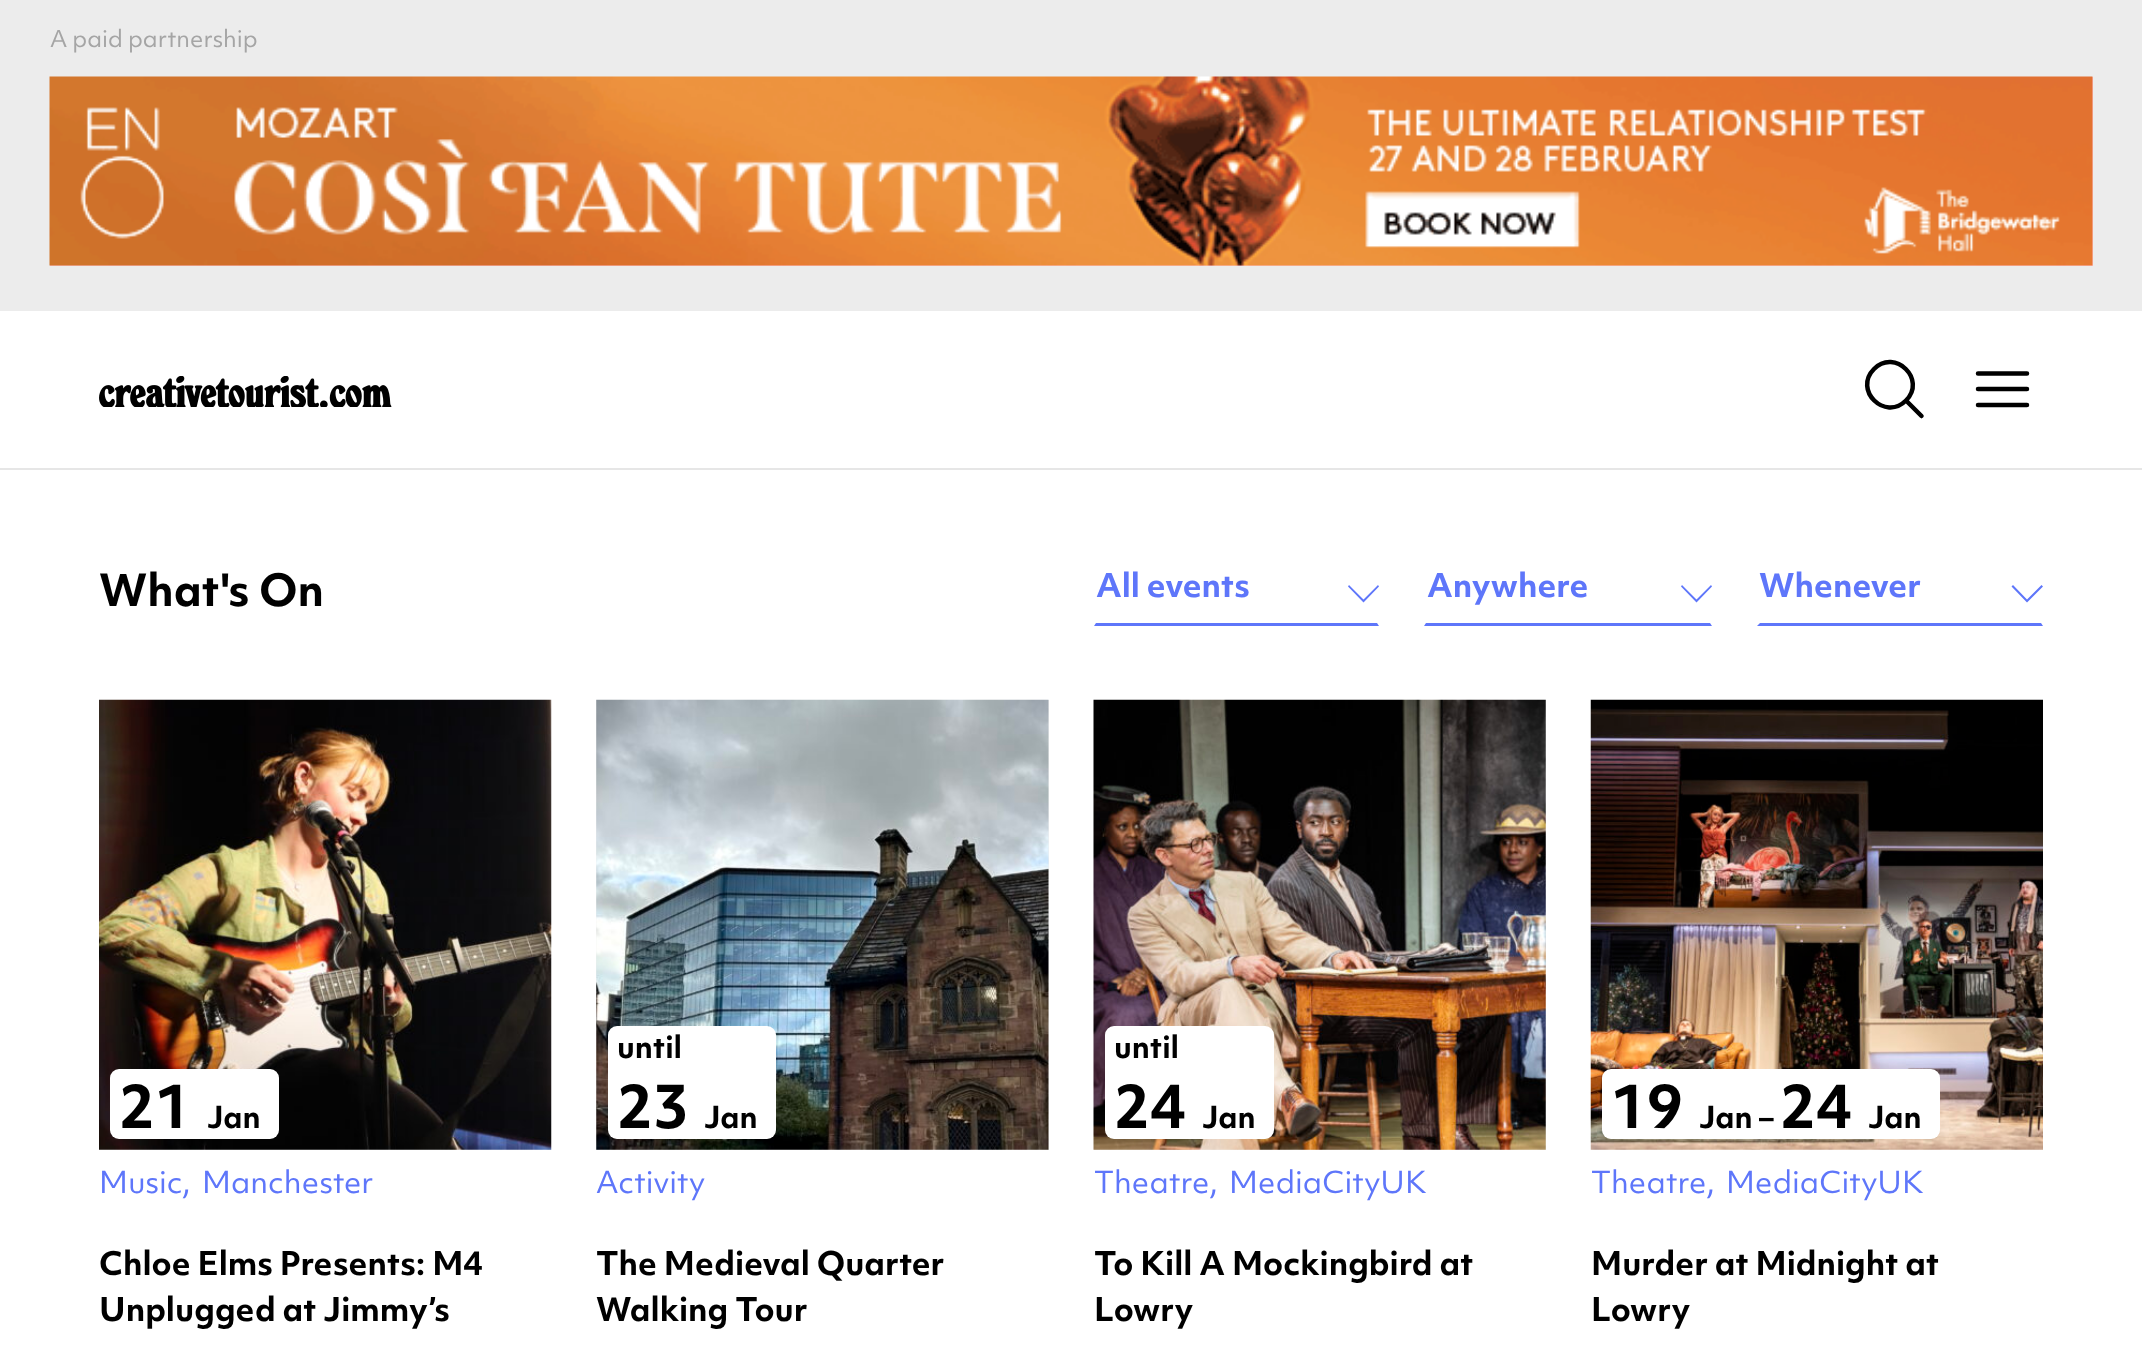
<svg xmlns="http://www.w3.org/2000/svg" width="2142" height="1366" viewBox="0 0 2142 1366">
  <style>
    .t1 { font: 22.5px 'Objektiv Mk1'; fill: #a5a5a5; }
    .t2 { font: bold 42.75px 'Objektiv Mk1'; fill: #000; }
    .t3 { font: bold 31.5px 'Objektiv Mk1'; fill: #5e76fa; }
    .t4 { font: bold 58px 'Objektiv Mk1'; fill: #000; }
    .t5 { font: bold 29.25px 'Objektiv Mk1'; fill: #000; }
    .t6 { font: 29.25px 'Objektiv Mk1'; fill: #5e76fa; }
    .t7 { font: bold 31.5px 'Objektiv Mk1'; fill: #000; }
  </style>
  <rect width="100%" height="100%" fill="#fff"/>
  <rect x="0" y="0" width="2142" height="311" fill="#ececec"/>
  <text x="50" y="47" class="t1">A paid partnership</text>
  <rect x="50" y="77" width="2043" height="189" fill="#ffc0cb"/>
  <image x="49" y="76" width="2044" height="190" href="images/1.png"/>
  <rect x="0" y="468" width="2142" height="2" fill="#e6e6e6"/>
  <image x="99" y="376" width="293" height="31" href="images/2.png"/>
  <path d="M1921.5 416L1906 400.5M1906 400.5C1927 379.5 1895 348 1874 369C1853 390 1885 421.5 1906 400.5Z" fill="none" stroke="#000" stroke-width="4.5" stroke-linecap="round" stroke-linejoin="round"/>
  <path d="M1978 373.5H2027M1978 389H2027M1978 405H2027" fill="none" stroke="#000" stroke-width="4.5" stroke-linecap="round" stroke-linejoin="round"/>
  <text x="99" y="606" class="t2">What's On</text>
  <path d="M1379 626H1094L1096 623H1377Z" fill="#5e76fa"/>
  <text x="1096" y="597" class="t3">All events</text>
  <path d="M1379 586.5L1363.5 602.5L1348 586.5L1349 585L1363.5 599.5L1378 585Z" fill="#5e76fa"/>
  <path d="M1712 626H1424L1426 623H1710Z" fill="#5e76fa"/>
  <text x="1427" y="597" class="t3">Anywhere</text>
  <path d="M1712 586.5L1696.5 602.5L1681 586.5L1682 585L1696.5 599.5L1711 585Z" fill="#5e76fa"/>
  <path d="M2043 626H1757L1760 623H2041Z" fill="#5e76fa"/>
  <text x="1759" y="597" class="t3">Whenever</text>
  <path d="M2043 586.5L2027 602.5L2011.5 586.5L2013 585L2027 599.5L2041.5 585Z" fill="#5e76fa"/>
  <image x="99" y="699" width="453" height="451" href="images/3.png"/>
  <rect x="110" y="1069" width="169" height="70" rx="9" fill="#fff"/>
  <text x="119" y="1128" class="t4">21</text>
  <text x="207" y="1128" class="t5">Jan</text>
  <text x="99" y="1193" class="t6">Music,</text>
  <text x="202" y="1193" class="t6">Manchester</text>
  <text x="99" y="1275" class="t7">Chloe Elms Presents: M4</text>
  <text x="99" y="1321" class="t7">Unplugged at Jimmy’s</text>
  <rect x="596" y="700" width="453" height="450" fill="#eee"/>
  <image x="596" y="699" width="453" height="451" href="images/4.png"/>
  <rect x="608" y="1026" width="168" height="113" rx="9" fill="#fff"/>
  <text x="617" y="1058" class="t5">until</text>
  <text x="617" y="1128" class="t4">23</text>
  <text x="704" y="1128" class="t5">Jan</text>
  <text x="596" y="1193" class="t6">Activity</text>
  <text x="596" y="1275" class="t7">The Medieval Quarter</text>
  <text x="596" y="1321" class="t7">Walking Tour</text>
  <rect x="1094" y="700" width="452" height="450" fill="#eee"/>
  <image x="1093" y="699" width="453" height="451" href="images/5.png"/>
  <rect x="1105" y="1026" width="169" height="113" rx="9" fill="#fff"/>
  <text x="1114" y="1058" class="t5">until</text>
  <text x="1114" y="1128" class="t4">24</text>
  <text x="1202" y="1128" class="t5">Jan</text>
  <text x="1094" y="1193" class="t6">Theatre,</text>
  <text x="1229" y="1193" class="t6">MediaCityUK</text>
  <text x="1094" y="1275" class="t7">To Kill A Mockingbird at</text>
  <text x="1094" y="1321" class="t7">Lowry</text>
  <image x="1590" y="699" width="453" height="451" href="images/6.png"/>
  <rect x="1602" y="1069" width="338" height="70" rx="9" fill="#fff"/>
  <text x="1611" y="1128" class="t4">19</text>
  <text x="1699" y="1128" class="t5">Jan –</text>
  <text x="1780" y="1128" class="t4">24</text>
  <text x="1868" y="1128" class="t5">Jan</text>
  <text x="1591" y="1193" class="t6">Theatre,</text>
  <text x="1726" y="1193" class="t6">MediaCityUK</text>
  <text x="1591" y="1275" class="t7">Murder at Midnight at</text>
  <text x="1591" y="1321" class="t7">Lowry</text>
</svg>
